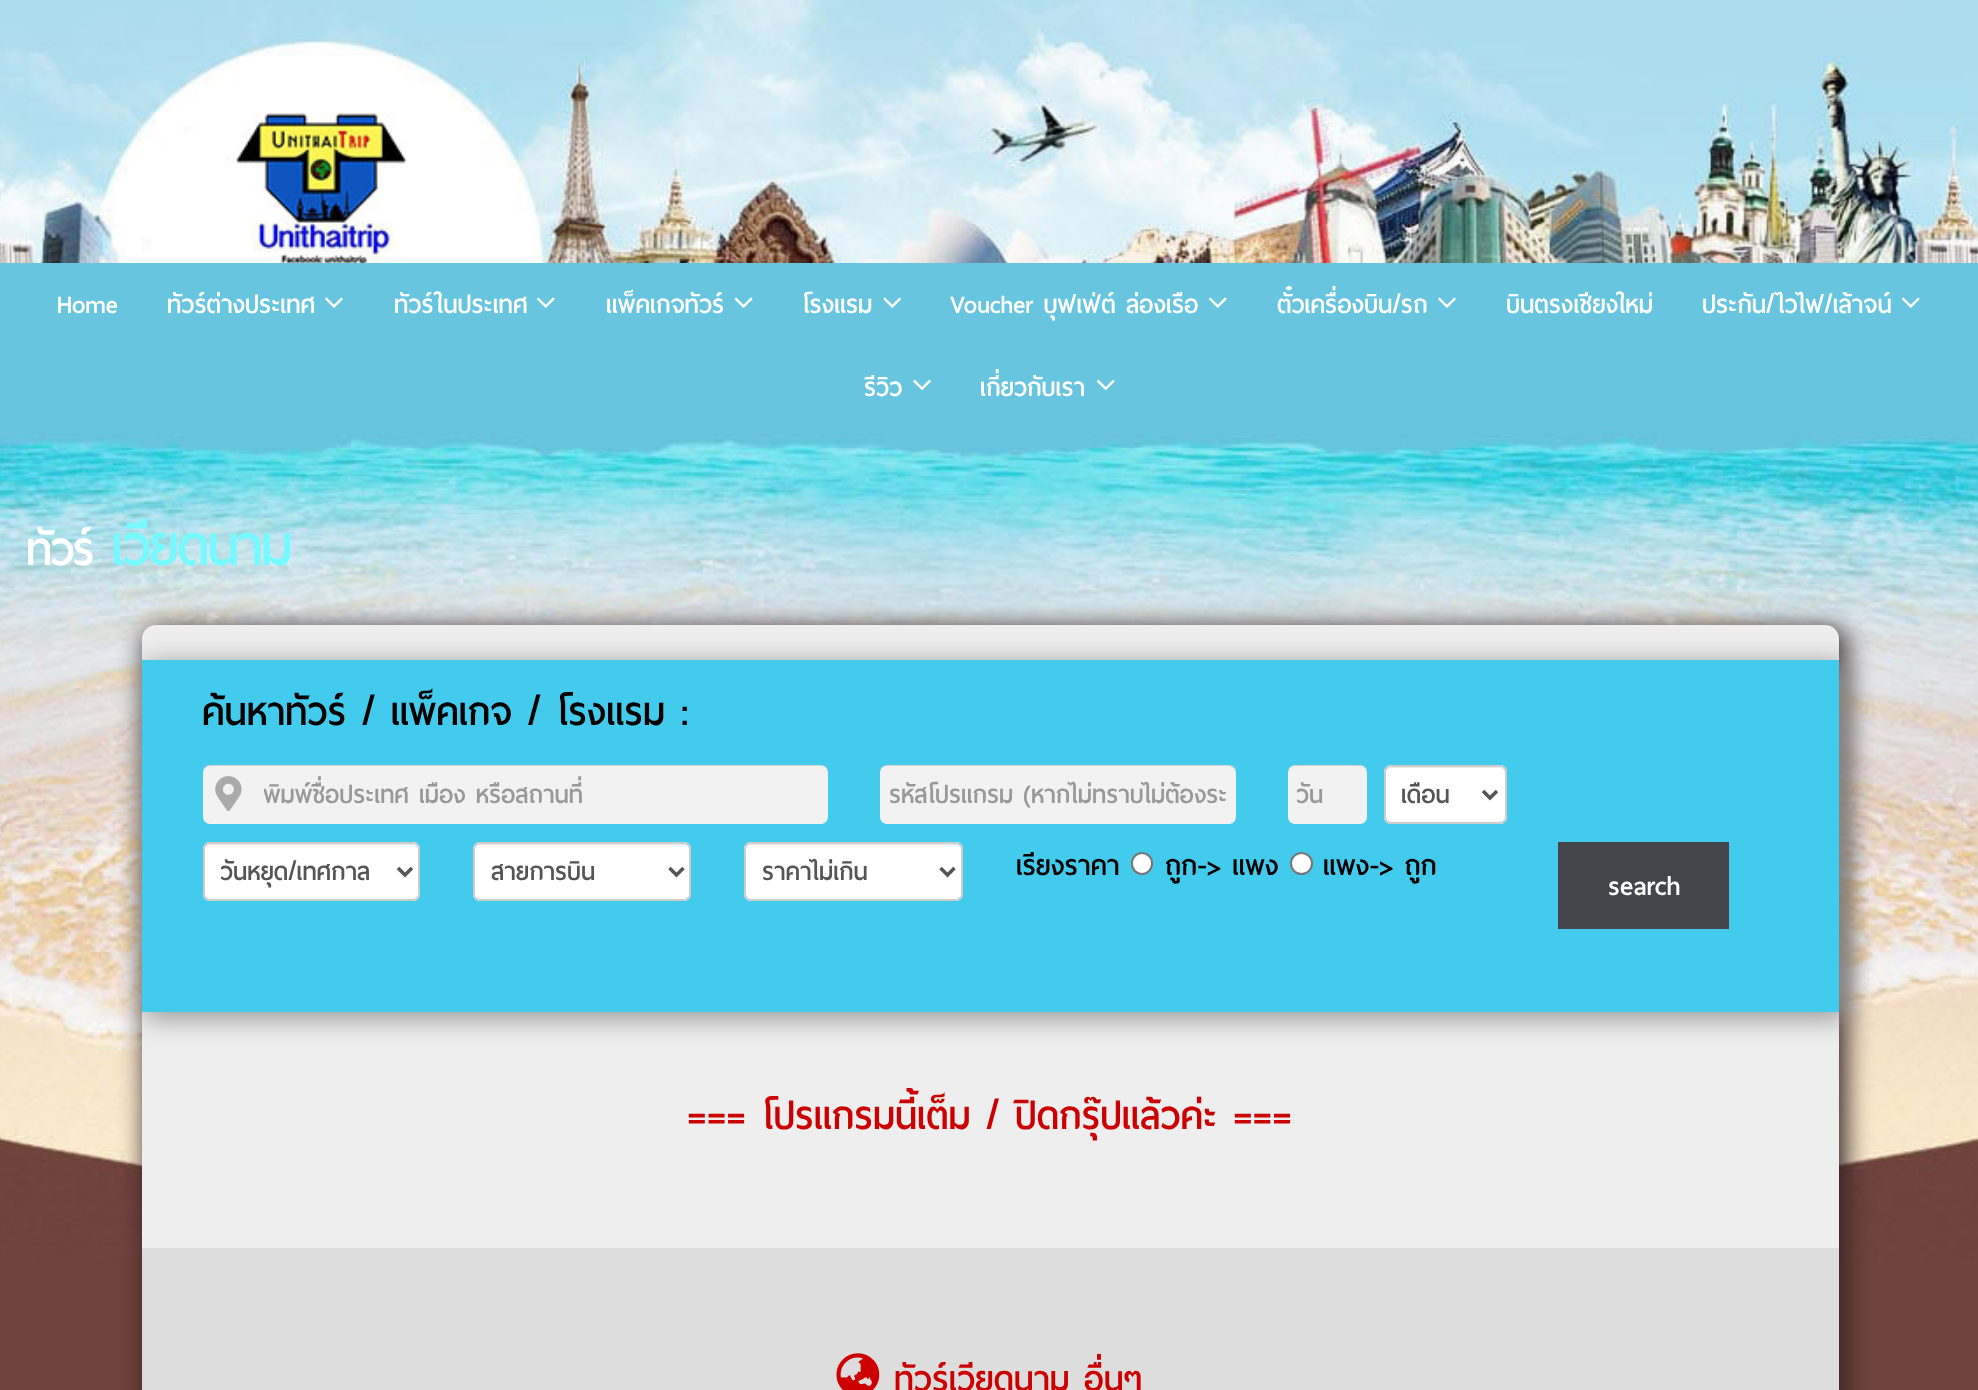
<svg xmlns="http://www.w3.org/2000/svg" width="1978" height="1390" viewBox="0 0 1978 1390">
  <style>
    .t1 { font: bold 31.75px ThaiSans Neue; fill: #fff; }
    .t2 { font: bold 58px ThaiSans Neue; letter-spacing: -1.75px; fill: #fff; }
    .t3 { font: bold 70px ThaiSans Neue; letter-spacing: -1.75px; fill: #76f9ff; }
    .t4 { font: bold 49px ThaiSans Neue; fill: #000; }
    .t5 { font: bold 31.5px ThaiSans Neue; fill: #999; }
    .t6 { font: bold 31.5px ThaiSans Neue; fill: #555; }
    .t7 { font: bold 35px ThaiSans Neue; fill: #000; }
    .t8 { font: bold 35px ThaiSans Neue; fill: #fff; }
    .t9 { font: bold 49px ThaiSans Neue; fill: #c00; }
    .t10 { font: bold 44px ThaiSans Neue; fill: #c00; }
  </style>
  <defs>
    <clipPath id="clip1"><rect x="264" y="775" width="555" height="39"/></clipPath>
    <clipPath id="clip2"><rect x="1297" y="775" width="35" height="39"/></clipPath>
    <clipPath id="clip3"><rect x="1402" y="774" width="66" height="42"/></clipPath>
    <clipPath id="clip4"><rect x="221" y="851" width="161" height="42"/></clipPath>
  </defs>
  <rect width="100%" height="100%" fill="#70433b"/>
  <image x="0" y="0" width="1978" height="1260" href="images/1.png"/>
  <rect x="0" y="263" width="1978" height="164" fill="#67c5df"/>
  <text x="57" y="313" class="t1">Home</text>
  <text x="167" y="313" class="t1">ทัวร์ต่างประเทศ</text>
  <image x="325" y="297" width="18" height="11" href="images/2.png"/>
  <text x="394" y="313" class="t1">ทัวร์ในประเทศ</text>
  <image x="537" y="297" width="18" height="11" href="images/3.png"/>
  <text x="606" y="313" class="t1">แพ็คเกจทัวร์</text>
  <image x="734" y="297" width="19" height="11" href="images/4.png"/>
  <text x="802" y="313" class="t1">โรงแรม</text>
  <image x="883" y="297" width="18" height="11" href="images/5.png"/>
  <text x="950" y="313" class="t1">Voucher บุฟเฟ่ต์ ล่องเรือ</text>
  <image x="1209" y="297" width="18" height="11" href="images/3.png"/>
  <text x="1277" y="313" class="t1">ตั๋วเครื่องบิน/รถ</text>
  <image x="1438" y="297" width="18" height="11" href="images/2.png"/>
  <text x="1506" y="313" class="t1">บินตรงเชียงใหม่</text>
  <text x="1702" y="313" class="t1">ประกัน/ไวไฟ/เล้าจน์</text>
  <image x="1902" y="297" width="18" height="11" href="images/3.png"/>
  <text x="864" y="396" class="t1">รีวิว</text>
  <image x="913" y="379" width="18" height="12" href="images/6.png"/>
  <text x="980" y="396" class="t1">เกี่ยวกับเรา</text>
  <image x="1096" y="379" width="19" height="12" href="images/7.png"/>
  <text x="26" y="565" class="t2">ทัวร์</text>
  <text x="111" y="565" class="t3">เวียดนาม</text>
  <rect x="145" y="628" width="1701" height="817" rx="16" fill="#322" filter="blur(13px)"/>
  <rect x="142" y="625" width="1697" height="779" rx="14" fill="#eee"/>
  <rect x="145" y="663" width="1701" height="356" fill="#999" filter="blur(13px)"/>
  <rect x="142" y="660" width="1697" height="352" fill="#43cbee"/>
  <text x="202" y="725" class="t4">ค้นหาทัวร์ / แพ็คเกจ / โรงแรม :</text>
  <rect x="203" y="765" width="625" height="59" rx="7" fill="#f2f2f2"/>
  <image x="215" y="776" width="27" height="36" href="images/8.png"/>
  <path d="M210 766H821C825 766 828 770 828 774C828 770 826 765 821 765H210C205 765 203 770 203 774C203 770 206 766 210 766Z" fill="#0000001f"/>
  <g clip-path="url(#clip1)">
    <text x="263" y="803" class="t5">พิมพ์ชื่อประเทศ เมือง หรือสถานที่</text>
  </g>
  <rect x="880" y="765" width="356" height="59" rx="7" fill="#f2f2f2"/>
  <path d="M887 766H1228C1232 766 1236 770 1236 774C1236 770 1234 765 1229 765H887C882 765 880 770 880 774C880 770 883 766 887 766Z" fill="#0000001f"/>
  <text x="889" y="803" class="t5">รหัสโปรแกรม (หากไม่ทราบไม่ต้องระ</text>
  <rect x="1288" y="765" width="79" height="59" rx="7" fill="#f2f2f2"/>
  <path d="M1295 766H1360C1364 766 1367 770 1367 774C1367 763 1358 765 1349 765H1306C1297 765 1288 763 1288 774C1288 770 1291 766 1295 766Z" fill="#0000001f"/>
  <g clip-path="url(#clip2)">
    <text x="1296" y="803" class="t5">วัน</text>
  </g>
  <rect x="1384" y="765" width="123" height="59" rx="7" fill="#fff"/>
  <path d="M1391 768H1500C1503 768 1505 771 1505 774V772C1505 769 1503 767 1500 767H1391C1388 767 1386 769 1386 772V774C1386 771 1388 768 1391 768Z" fill="#ececec"/>
  <rect x="1385" y="766" width="121" height="57" rx="6" fill="none" stroke="#ccc" stroke-width="2"/>
  <path d="M1483 791L1490 798L1497 791" fill="none" stroke="#555" stroke-width="3.5"/>
  <g clip-path="url(#clip3)">
    <text x="1401" y="803" class="t6">เดือน</text>
  </g>
  <rect x="203" y="842" width="217" height="59" rx="7" fill="#fff"/>
  <path d="M210 845H413C416 845 418 848 418 850C418 847 416 844 413 844H209C206 845 205 847 205 850C205 848 207 845 210 845Z" fill="#ececec"/>
  <rect x="204" y="843" width="215" height="57" rx="6" fill="none" stroke="#ccc" stroke-width="2"/>
  <path d="M398 868L405 875L412 868" fill="none" stroke="#555" stroke-width="3.5"/>
  <g clip-path="url(#clip4)">
    <text x="220" y="880" class="t6">วันหยุด/เทศกาล</text>
  </g>
  <rect x="473" y="842" width="218" height="59" rx="7" fill="#fff"/>
  <path d="M480 845H684C687 845 690 848 690 850C690 847 688 844 685 844H478C475 845 474 847 474 850C474 848 477 845 480 845Z" fill="#ececec"/>
  <rect x="474" y="843" width="216" height="57" rx="6" fill="none" stroke="#ccc" stroke-width="2"/>
  <path d="M669.5 868L676.5 875L683.5 868" fill="none" stroke="#555" stroke-width="3.5"/>
  <text x="491" y="880" class="t6">สายการบิน</text>
  <rect x="744" y="842" width="219" height="59" rx="7" fill="#fff"/>
  <path d="M751 845H956C958 845 961 848 961 850C961 847 959 844 956 844H750C747 845 746 847 746 850C746 848 748 845 751 845Z" fill="#ececec"/>
  <rect x="745" y="843" width="217" height="57" rx="6" fill="none" stroke="#ccc" stroke-width="2"/>
  <path d="M940.5 868L947.5 875L954.5 868" fill="none" stroke="#555" stroke-width="3.5"/>
  <text x="762" y="880" class="t6">ราคาไม่เกิน</text>
  <text x="1016" y="875" class="t7">เรียงราคา</text>
  <rect x="1132" y="853" width="20" height="21" rx="10" fill="#fff" stroke="#767676" stroke-width="2"/>
  <text x="1165" y="875" class="t7">ถูก-&gt; แพง</text>
  <circle cx="1301.5" cy="863.5" r="10.5" fill="#fff" stroke="#767676" stroke-width="2"/>
  <text x="1323" y="875" class="t7">แพง-&gt; ถูก</text>
  <rect x="1558" y="842" width="171" height="87" fill="#43454b"/>
  <text x="1608" y="895" class="t8">search</text>
  <text x="687" y="1129" class="t9">=== โปรแกรมนี้เต็ม / ปิดกรุ๊ปแล้วค่ะ ===</text>
  <rect x="142" y="1248" width="1697" height="142" fill="#ddd"/>
  <image x="836" y="1353" width="44" height="37" href="images/9.png"/>
  <text x="894" y="1391" class="t10">ทัวร์เวียดนาม อื่นๆ</text>
</svg>
